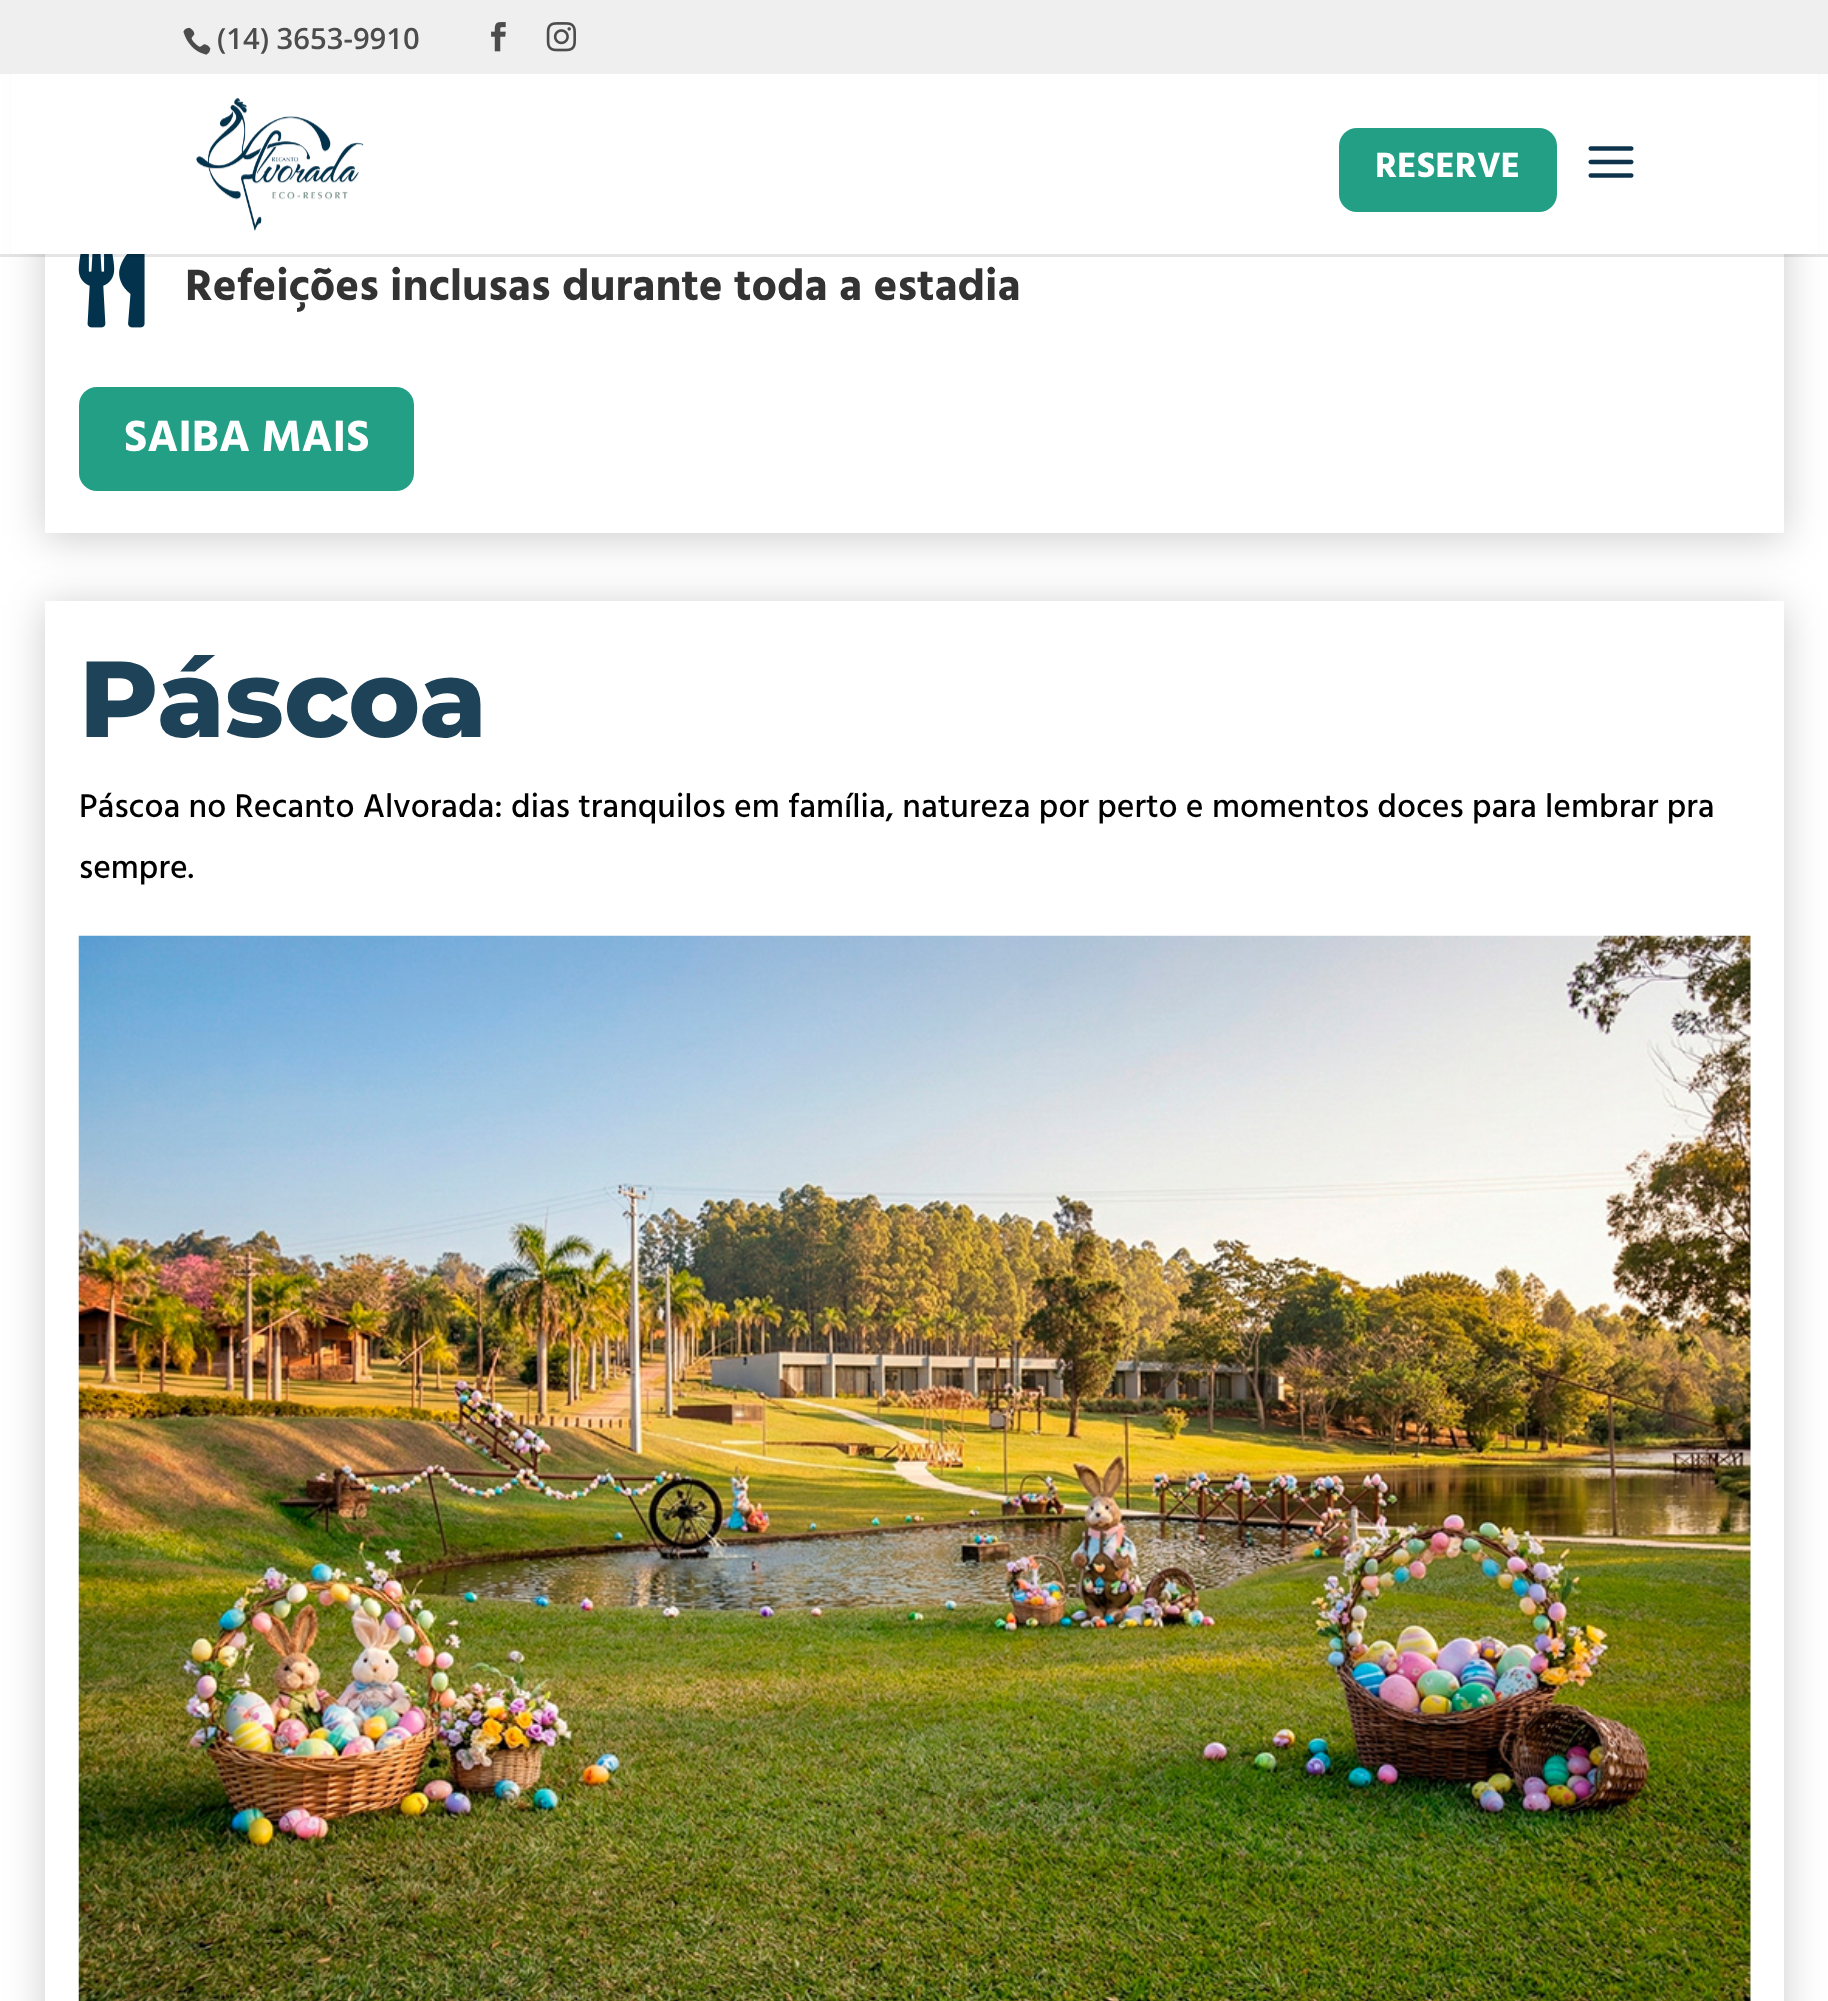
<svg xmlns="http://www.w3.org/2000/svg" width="1828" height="2001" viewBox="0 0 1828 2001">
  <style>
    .t1 { font: 600 29.25px Open Sans; fill: #4c4c4c; }
    .t2 { font: bold 36px Hind; fill: #fff; }
    .t3 { font: bold 45px Hind; fill: #333; }
    .t4 { font: bold 45px Hind; fill: #fff; }
    .t5 { font: 800 108px Montserrat; fill: #1e4358; }
    .t6 { font: 500 33.75px Hind; fill: #000; }
  </style>
  <defs>
    <clipPath id="clip1"><path d="M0 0H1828V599H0ZM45-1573H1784V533H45Z" clip-rule="evenodd"/></clipPath>
    <clipPath id="clip2"><path d="M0 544H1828V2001H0ZM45 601H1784V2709H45Z" clip-rule="evenodd"/></clipPath>
  </defs>
  <rect width="100%" height="100%" fill="#fff"/>
  <g clip-path="url(#clip1)">
    <rect x="45" y="-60" width="1739" height="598" fill="#00000033" filter="blur(20px)"/>
  </g>
  <rect x="0" y="0" width="1828" height="74" fill="#efefef"/>
  <image x="183" y="27" width="28" height="28" href="images/1.png"/>
  <text x="217" y="49" class="t1">(14) 3653-9910</text>
  <image x="491" y="22" width="15" height="30" href="images/2.png"/>
  <image x="546" y="22" width="30" height="30" href="images/3.png"/>
  <image x="78" y="254" width="67" height="74" href="images/6.png"/>
  <rect x="0" y="254" width="1828" height="3" fill="#0000001a"/>
  <rect x="12" y="74" width="1805" height="180" fill="#fff"/>
  <image x="196" y="98" width="168" height="133" href="images/4.png"/>
  <rect x="1339" y="128" width="218" height="84" rx="18" fill="#229f85"/>
  <text x="1375" y="177" class="t2">RESERVE</text>
  <image x="1588" y="146" width="46" height="32" href="images/5.png"/>
  <text x="185" y="300" class="t3">Refeições inclusas durante toda a estadia</text>
  <rect x="79" y="387" width="335" height="104" rx="18" fill="#229f85"/>
  <text x="124" y="451" class="t4">SAIBA MAIS</text>
  <g clip-path="url(#clip2)">
    <rect x="45" y="605" width="1739" height="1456" fill="#00000033" filter="blur(20px)"/>
  </g>
  <text x="79" y="737" class="t5">Páscoa</text>
  <text x="79" y="817" class="t6">Páscoa no Recanto Alvorada: dias tranquilos em família, natureza por perto e momentos doces para lembrar pra</text>
  <text x="79" y="878" class="t6">sempre.</text>
  <image x="78" y="935" width="1673" height="1066" href="images/7.png"/>
</svg>
